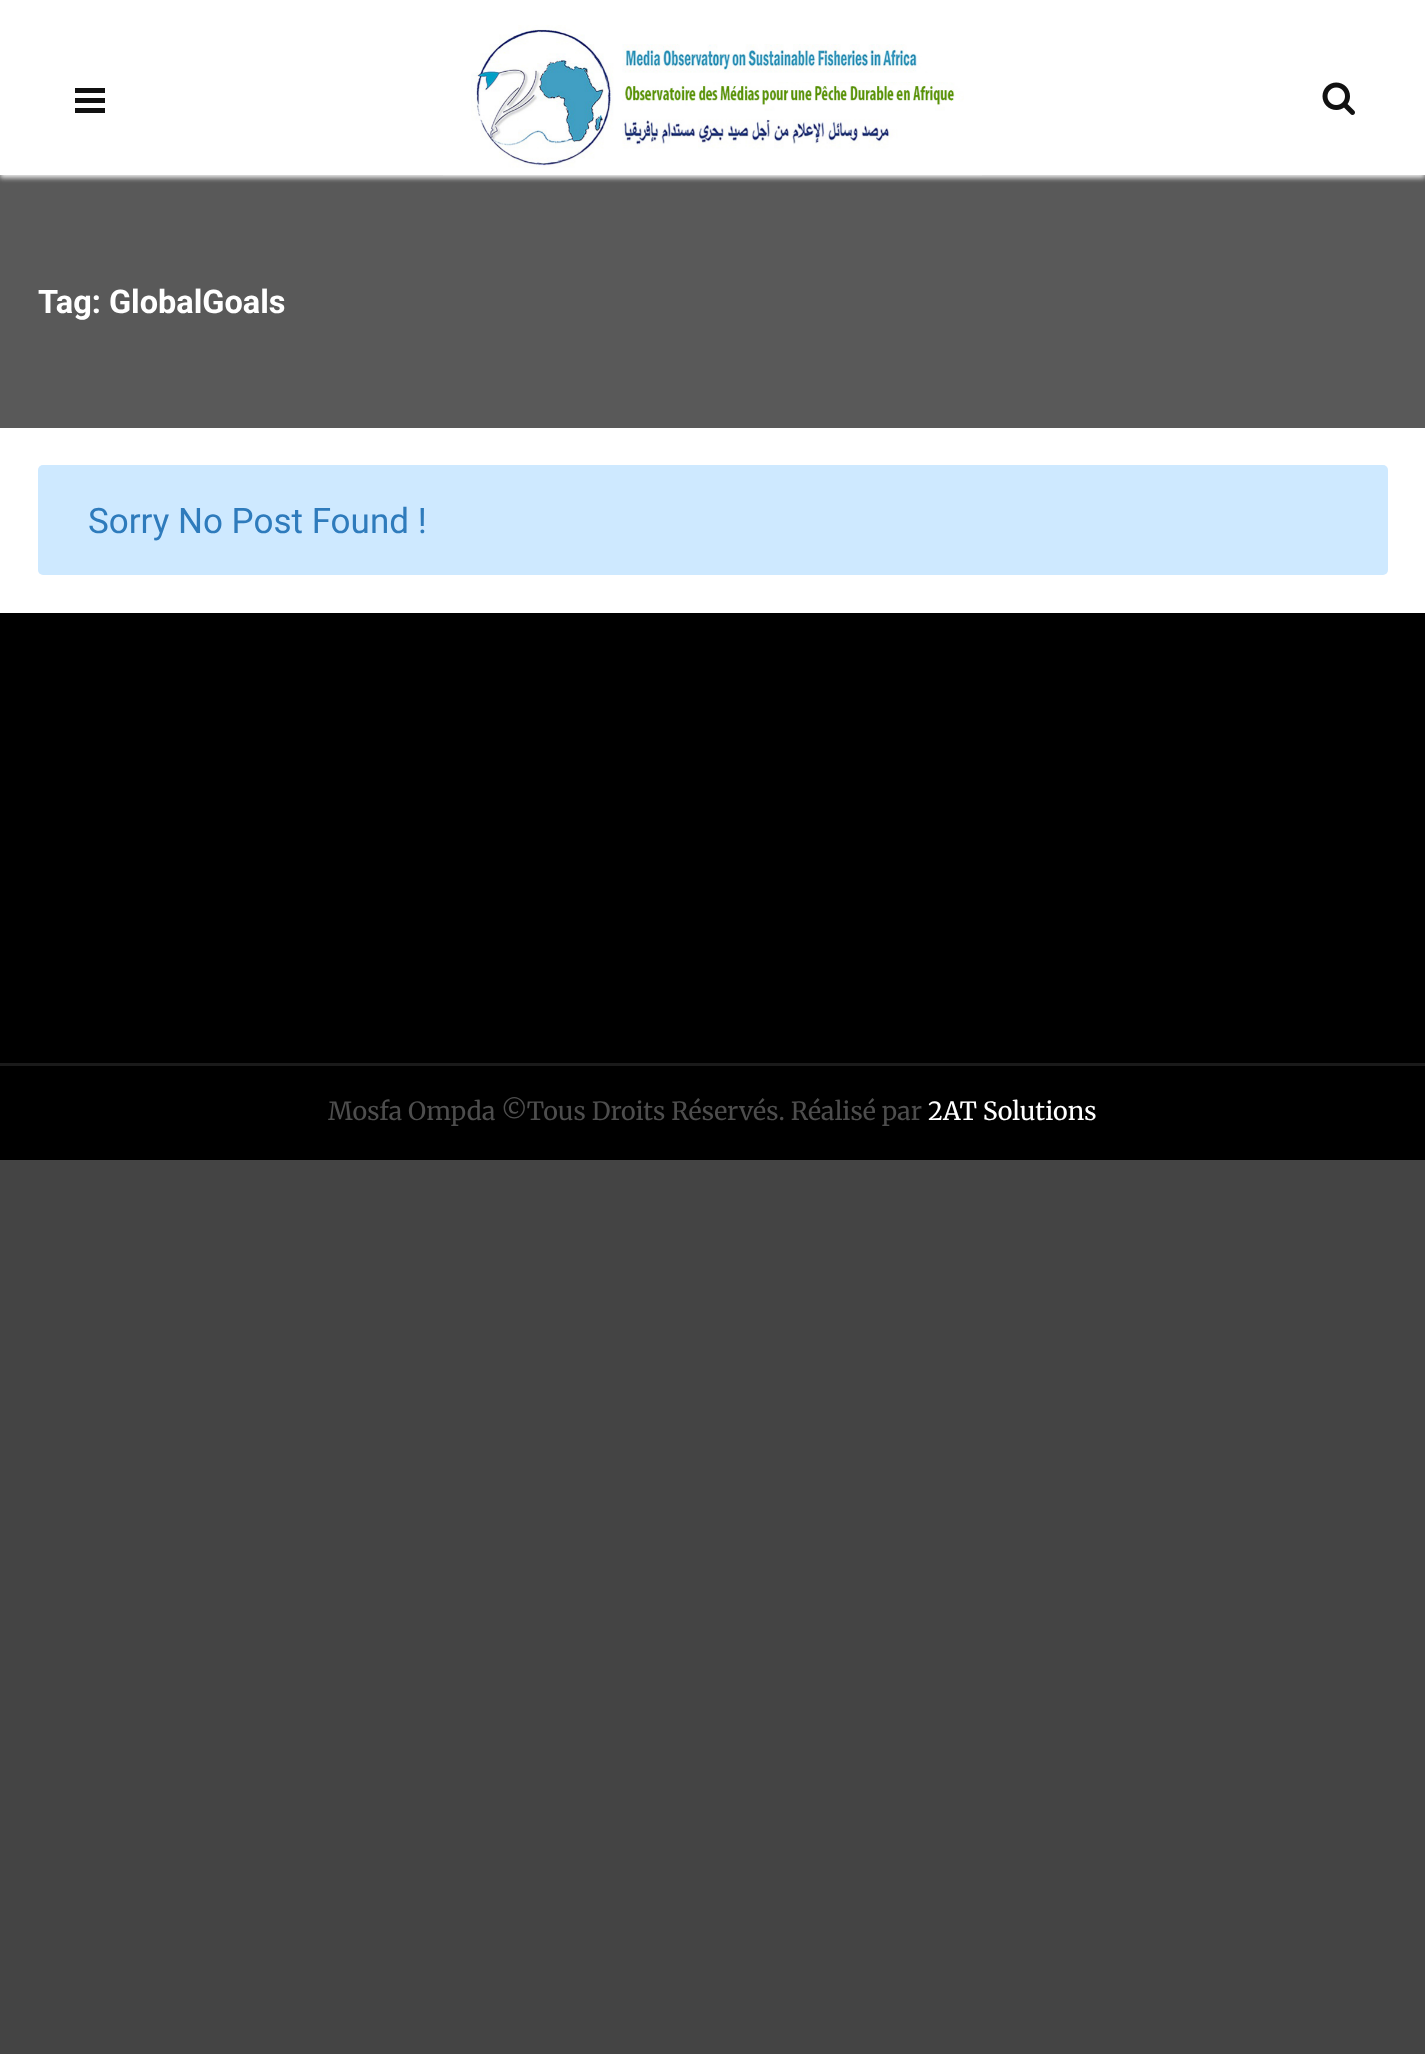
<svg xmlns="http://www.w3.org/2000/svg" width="1425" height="2054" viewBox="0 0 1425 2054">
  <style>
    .t1 { font: bold 32.5px Roboto; fill: #fff; }
    .t2 { font: 35px Roboto; fill: #2e7bbc; }
    .t3 { font: 300 25px Merriweather; fill: #4d4d4d; }
    .t4 { font: 300 25px Merriweather; fill: #fff; }
  </style>
  <rect width="100%" height="100%" fill="#444"/>
  <rect x="0" y="428" width="1425" height="185" fill="#fff"/>
  <rect x="0" y="175" width="1425" height="253" fill="#595959"/>
  <rect x="0" y="3" width="1425" height="175" fill="#eaeaea" filter="blur(2.5px)"/>
  <rect x="0" y="0" width="1425" height="175" fill="#fff"/>
  <rect x="75" y="88" width="30" height="5" fill="#111"/>
  <rect x="75" y="98" width="30" height="5" fill="#111"/>
  <rect x="75" y="108" width="30" height="5" fill="#111"/>
  <image x="443" y="25" width="539" height="151" href="images/1.png"/>
  <image x="1322" y="82" width="33" height="33" href="images/2.png"/>
  <text x="38" y="313" class="t1">Tag: GlobalGoals</text>
  <rect x="38" y="465" width="1350" height="110" rx="5" fill="#cee9ff"/>
  <text x="88" y="533" class="t2">Sorry No Post Found !</text>
  <rect x="0" y="613" width="1425" height="547" fill="#000"/>
  <rect x="0" y="1063" width="1425" height="3" fill="#1a1a1a"/>
  <text x="328" y="1120" class="t3">Mosfa Ompda ©Tous Droits Réservés. Réalisé par</text>
  <text x="928" y="1120" class="t4">2AT Solutions</text>
</svg>
